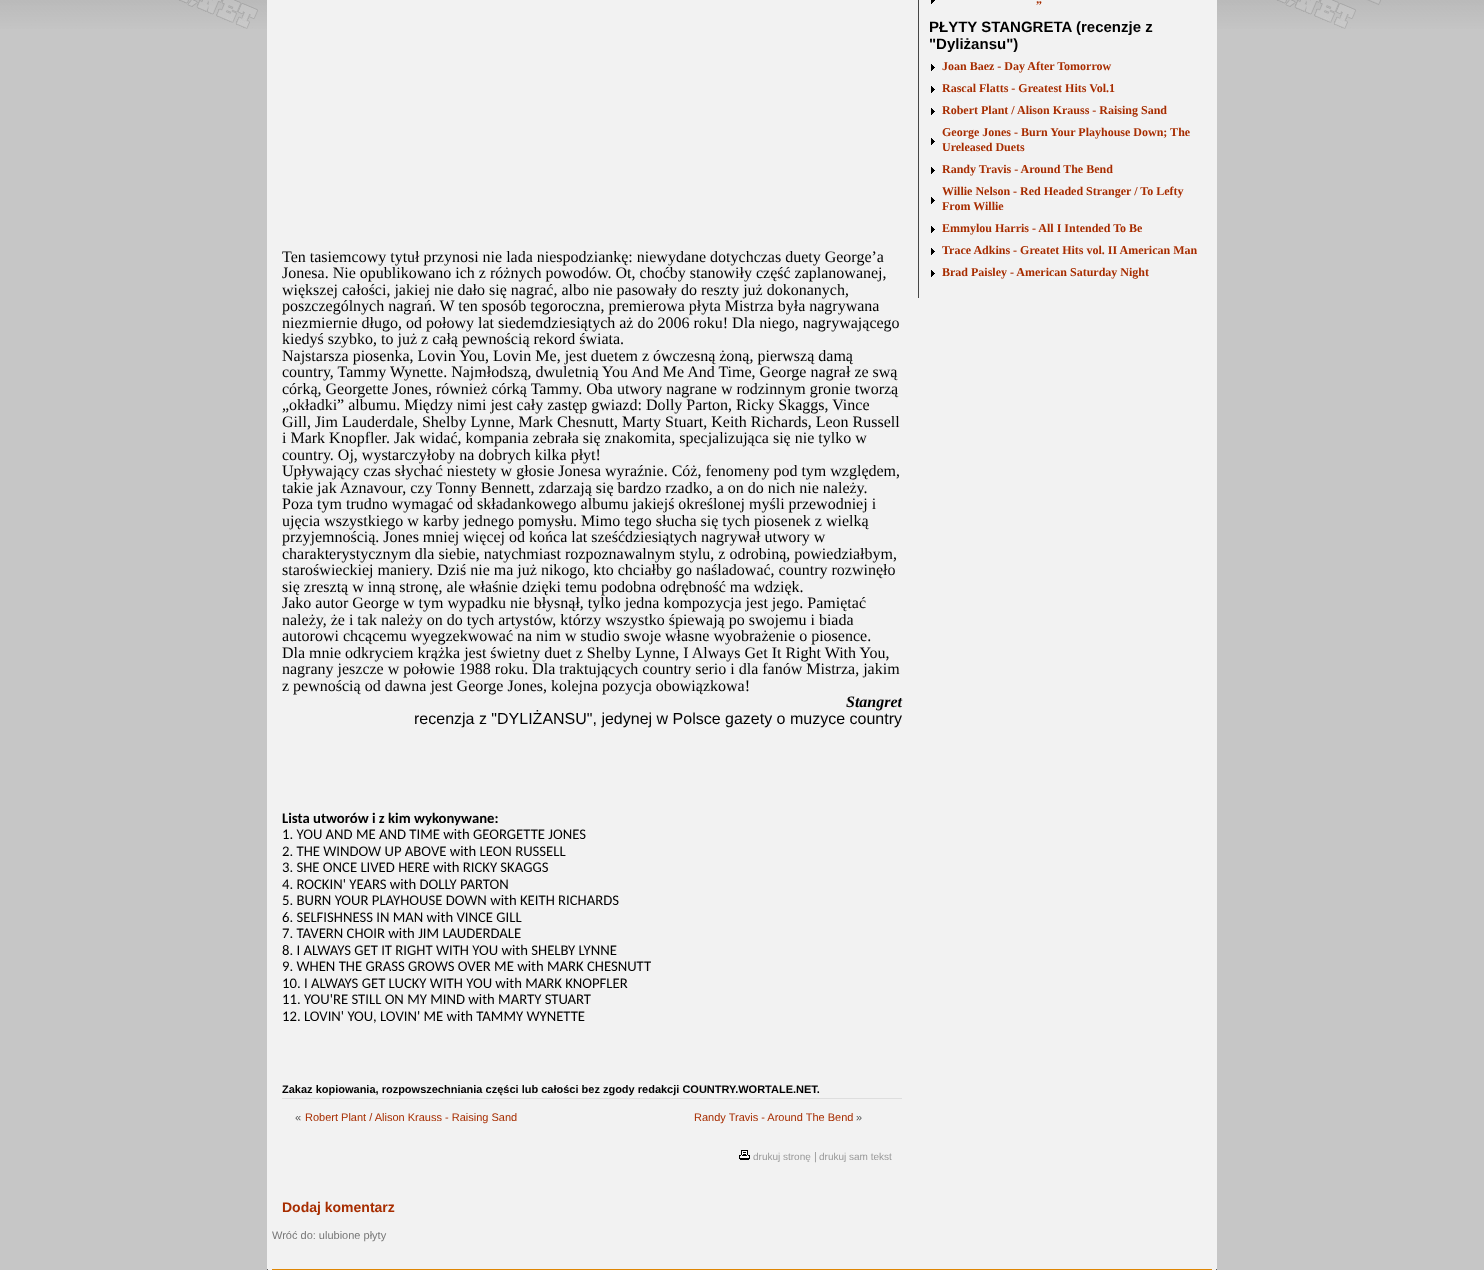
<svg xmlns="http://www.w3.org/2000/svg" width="1484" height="1270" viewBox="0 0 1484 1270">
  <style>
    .t1 { font: bold 12px Liberation Serif; fill: #a72d00; }
    .t2 { font: bold 15px Liberation Sans; fill: #000; }
    .t3 { font: 16px Liberation Serif; fill: #000; }
    .t4 { font: italic bold 16px Liberation Serif; fill: #000; }
    .t5 { font: 16px Liberation Sans; fill: #000; }
    .t6 { font: bold 14.7px Carlito; fill: #000; }
    .t7 { font: 14.7px Carlito; fill: #000; }
    .t8 { font: bold 11px Liberation Sans; fill: #000; }
    .t9 { font: 11px Liberation Sans; fill: #555; }
    .t10 { font: 11px Liberation Sans; fill: #a72d00; }
    .t11 { font: 10px Liberation Sans; fill: #999; }
    .t12 { font: 11px Liberation Sans; fill: #999; }
    .t13 { font: bold 14px Liberation Sans; fill: #a72d00; }
    .t14 { font: 11px Liberation Sans; fill: #777; }
  </style>
  <rect width="100%" height="100%" fill="#c6c6c6"/>
  <image x="0" y="0" width="1484" height="29" href="images/1.png"/>
  <rect x="267" y="0" width="950" height="1269" fill="#f2f2f2"/>
  <rect x="918" y="0" width="1" height="298" fill="#474747"/>
  <image x="931" y="0" width="4" height="4" href="images/2.png"/>
  <text x="1036" y="3" class="t1">„</text>
  <text x="929" y="32" class="t2">PŁYTY STANGRETA (recenzje z</text>
  <text x="929" y="49" class="t2">"Dyliżansu")</text>
  <image x="931" y="64" width="4" height="7" href="images/3.png"/>
  <text x="942" y="70" class="t1">Joan Baez - Day After Tomorrow</text>
  <image x="931" y="86" width="4" height="7" href="images/3.png"/>
  <text x="942" y="92" class="t1">Rascal Flatts - Greatest Hits Vol.1</text>
  <image x="931" y="108" width="4" height="7" href="images/3.png"/>
  <text x="942" y="114" class="t1">Robert Plant / Alison Krauss - Raising Sand</text>
  <image x="931" y="138" width="4" height="7" href="images/3.png"/>
  <text x="942" y="136" class="t1">George Jones - Burn Your Playhouse Down; The</text>
  <text x="942" y="151" class="t1">Ureleased Duets</text>
  <image x="931" y="167" width="4" height="7" href="images/3.png"/>
  <text x="942" y="173" class="t1">Randy Travis - Around The Bend</text>
  <image x="931" y="197" width="4" height="7" href="images/3.png"/>
  <text x="942" y="195" class="t1">Willie Nelson - Red Headed Stranger / To Lefty</text>
  <text x="942" y="210" class="t1">From Willie</text>
  <image x="931" y="226" width="4" height="7" href="images/3.png"/>
  <text x="942" y="232" class="t1">Emmylou Harris - All I Intended To Be</text>
  <image x="931" y="248" width="4" height="7" href="images/3.png"/>
  <text x="942" y="254" class="t1">Trace Adkins - Greatet Hits vol. II American Man</text>
  <image x="931" y="270" width="4" height="7" href="images/3.png"/>
  <text x="942" y="276" class="t1">Brad Paisley - American Saturday Night</text>
  <text x="282" y="262" class="t3">Ten tasiemcowy tytuł przynosi nie lada niespodziankę: niewydane dotychczas duety George’a</text>
  <text x="282" y="278" class="t3">Jonesa. Nie opublikowano ich z różnych powodów. Ot, choćby stanowiły część zaplanowanej,</text>
  <text x="282" y="295" class="t3">większej całości, jakiej nie dało się nagrać, albo nie pasowały do reszty już dokonanych,</text>
  <text x="282" y="311" class="t3">poszczególnych nagrań. W ten sposób tegoroczna, premierowa płyta Mistrza była nagrywana</text>
  <text x="282" y="328" class="t3">niezmiernie długo, od połowy lat siedemdziesiątych aż do 2006 roku! Dla niego, nagrywającego</text>
  <text x="282" y="344" class="t3">kiedyś szybko, to już z całą pewnością rekord świata.</text>
  <text x="282" y="361" class="t3">Najstarsza piosenka, Lovin You, Lovin Me, jest duetem z ówczesną żoną, pierwszą damą</text>
  <text x="282" y="377" class="t3">country, Tammy Wynette. Najmłodszą, dwuletnią You And Me And Time, George nagrał ze swą</text>
  <text x="282" y="394" class="t3">córką, Georgette Jones, również córką Tammy. Oba utwory nagrane w rodzinnym gronie tworzą</text>
  <text x="282" y="410" class="t3">„okładki” albumu. Między nimi jest cały zastęp gwiazd: Dolly Parton, Ricky Skaggs, Vince</text>
  <text x="282" y="427" class="t3">Gill, Jim Lauderdale, Shelby Lynne, Mark Chesnutt, Marty Stuart, Keith Richards, Leon Russell</text>
  <text x="282" y="443" class="t3">i Mark Knopfler. Jak widać, kompania zebrała się znakomita, specjalizująca się nie tylko w</text>
  <text x="282" y="460" class="t3">country. Oj, wystarczyłoby na dobrych kilka płyt!</text>
  <text x="282" y="476" class="t3">Upływający czas słychać niestety w głosie Jonesa wyraźnie. Cóż, fenomeny pod tym względem,</text>
  <text x="282" y="493" class="t3">takie jak Aznavour, czy Tonny Bennett, zdarzają się bardzo rzadko, a on do nich nie należy.</text>
  <text x="282" y="509" class="t3">Poza tym trudno wymagać od składankowego albumu jakiejś określonej myśli przewodniej i</text>
  <text x="282" y="526" class="t3">ujęcia wszystkiego w karby jednego pomysłu. Mimo tego słucha się tych piosenek z wielką</text>
  <text x="282" y="542" class="t3">przyjemnością. Jones mniej więcej od końca lat sześćdziesiątych nagrywał utwory w</text>
  <text x="282" y="559" class="t3">charakterystycznym dla siebie, natychmiast rozpoznawalnym stylu, z odrobiną, powiedziałbym,</text>
  <text x="282" y="575" class="t3">staroświeckiej maniery. Dziś nie ma już nikogo, kto chciałby go naśladować, country rozwinęło</text>
  <text x="282" y="592" class="t3">się zresztą w inną stronę, ale właśnie dzięki temu podobna odrębność ma wdzięk.</text>
  <text x="282" y="608" class="t3">Jako autor George w tym wypadku nie błysnął, tylko jedna kompozycja jest jego. Pamiętać</text>
  <text x="282" y="625" class="t3">należy, że i tak należy on do tych artystów, którzy wszystko śpiewają po swojemu i biada</text>
  <text x="282" y="641" class="t3">autorowi chcącemu wyegzekwować na nim w studio swoje własne wyobrażenie o piosence.</text>
  <text x="282" y="658" class="t3">Dla mnie odkryciem krążka jest świetny duet z Shelby Lynne, I Always Get It Right With You,</text>
  <text x="282" y="674" class="t3">nagrany jeszcze w połowie 1988 roku. Dla traktujących country serio i dla fanów Mistrza, jakim</text>
  <text x="282" y="691" class="t3">z pewnością od dawna jest George Jones, kolejna pozycja obowiązkowa!</text>
  <text x="846" y="707" class="t4">Stangret</text>
  <text x="414" y="724" class="t5">recenzja z "DYLIŻANSU", jedynej w Polsce gazety o muzyce country</text>
  <text x="282" y="823" class="t6">Lista utworów i z kim wykonywane:</text>
  <text x="282" y="839" class="t7">1. YOU AND ME AND TIME with GEORGETTE JONES</text>
  <text x="282" y="856" class="t7">2. THE WINDOW UP ABOVE with LEON RUSSELL</text>
  <text x="282" y="872" class="t7">3. SHE ONCE LIVED HERE with RICKY SKAGGS</text>
  <text x="282" y="889" class="t7">4. ROCKIN' YEARS with DOLLY PARTON</text>
  <text x="282" y="905" class="t7">5. BURN YOUR PLAYHOUSE DOWN with KEITH RICHARDS</text>
  <text x="282" y="922" class="t7">6. SELFISHNESS IN MAN with VINCE GILL</text>
  <text x="282" y="938" class="t7">7. TAVERN CHOIR with JIM LAUDERDALE</text>
  <text x="282" y="955" class="t7">8. I ALWAYS GET IT RIGHT WITH YOU with SHELBY LYNNE</text>
  <text x="282" y="971" class="t7">9. WHEN THE GRASS GROWS OVER ME with MARK CHESNUTT</text>
  <text x="282" y="988" class="t7">10. I ALWAYS GET LUCKY WITH YOU with MARK KNOPFLER</text>
  <text x="282" y="1004" class="t7">11. YOU'RE STILL ON MY MIND with MARTY STUART</text>
  <text x="282" y="1021" class="t7">12. LOVIN' YOU, LOVIN' ME with TAMMY WYNETTE</text>
  <text x="282" y="1093" class="t8">Zakaz kopiowania, rozpowszechniania części lub całości bez zgody redakcji COUNTRY.WORTALE.NET.</text>
  <rect x="282" y="1098" width="620" height="1" fill="#dedede"/>
  <text x="295" y="1121" class="t9">«</text>
  <text x="305" y="1121" class="t10">Robert Plant / Alison Krauss - Raising Sand</text>
  <text x="694" y="1121" class="t10">Randy Travis - Around The Bend</text>
  <text x="856" y="1121" class="t9">»</text>
  <image x="739" y="1150" width="11" height="10" href="images/4.png"/>
  <text x="753" y="1160" class="t11">drukuj stronę</text>
  <text x="814" y="1160" class="t12">|</text>
  <text x="819" y="1160" class="t11">drukuj sam tekst</text>
  <text x="282" y="1212" class="t13">Dodaj komentarz</text>
  <text x="272" y="1239" class="t14">Wróć do: ulubione płyty</text>
  <image x="267" y="1269" width="950" height="1" href="images/5.png"/>
</svg>
